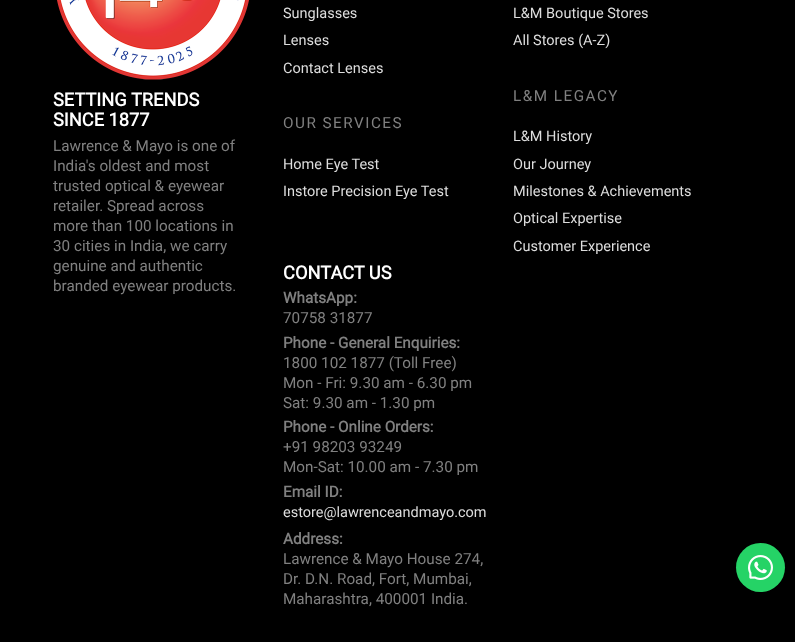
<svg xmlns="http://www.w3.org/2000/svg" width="795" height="642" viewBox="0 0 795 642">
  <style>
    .t1 { font: bold 18.25px Roboto; fill: #fff; }
    .t2 { font: 15.25px Roboto; fill: #808080; }
    .t3 { font: 14.5px Roboto; fill: #ddd; }
    .t4 { font: 15.25px Roboto; letter-spacing: 1.5px; fill: #808080; }
    .t5 { font: bold 15.25px Roboto; fill: #808080; }
  </style>
  <rect width="100%" height="100%" fill="#000"/>
  <image x="57" y="0" width="192" height="80" href="images/1.png"/>
  <text x="53" y="106" class="t1">SETTING TRENDS</text>
  <text x="53" y="126" class="t1">SINCE 1877</text>
  <text x="53" y="151" class="t2">Lawrence &amp; Mayo is one of</text>
  <text x="53" y="171" class="t2">India's oldest and most</text>
  <text x="53" y="191" class="t2">trusted optical &amp; eyewear</text>
  <text x="53" y="211" class="t2">retailer. Spread across</text>
  <text x="53" y="231" class="t2">more than 100 locations in</text>
  <text x="53" y="251" class="t2">30 cities in India, we carry</text>
  <text x="53" y="271" class="t2">genuine and authentic</text>
  <text x="53" y="291" class="t2">branded eyewear products.</text>
  <text x="283" y="18" class="t3">Sunglasses</text>
  <text x="283" y="45" class="t3">Lenses</text>
  <text x="283" y="73" class="t3">Contact Lenses</text>
  <text x="283" y="128" class="t4">OUR SERVICES</text>
  <text x="283" y="169" class="t3">Home Eye Test</text>
  <text x="283" y="196" class="t3">Instore Precision Eye Test</text>
  <text x="513" y="18" class="t3">L&amp;M Boutique Stores</text>
  <text x="513" y="45" class="t3">All Stores (A-Z)</text>
  <text x="513" y="101" class="t4">L&amp;M LEGACY</text>
  <text x="513" y="141" class="t3">L&amp;M History</text>
  <text x="513" y="169" class="t3">Our Journey</text>
  <text x="513" y="196" class="t3">Milestones &amp; Achievements</text>
  <text x="513" y="223" class="t3">Optical Expertise</text>
  <text x="513" y="251" class="t3">Customer Experience</text>
  <text x="283" y="279" class="t1">CONTACT US</text>
  <text x="283" y="303" class="t5">WhatsApp:</text>
  <text x="283" y="323" class="t2">70758 31877</text>
  <text x="283" y="348" class="t5">Phone - General Enquiries:</text>
  <text x="283" y="368" class="t2">1800 102 1877 (Toll Free)</text>
  <text x="283" y="388" class="t2">Mon - Fri: 9.30 am - 6.30 pm</text>
  <text x="283" y="408" class="t2">Sat: 9.30 am - 1.30 pm</text>
  <text x="283" y="432" class="t5">Phone - Online Orders:</text>
  <text x="283" y="452" class="t2">+91 98203 93249</text>
  <text x="283" y="472" class="t2">Mon-Sat: 10.00 am - 7.30 pm</text>
  <text x="283" y="497" class="t5">Email ID:</text>
  <text x="283" y="517" class="t3">estore@lawrenceandmayo.com</text>
  <text x="283" y="544" class="t5">Address:</text>
  <text x="283" y="564" class="t2">Lawrence &amp; Mayo House 274,</text>
  <text x="283" y="584" class="t2">Dr. D.N. Road, Fort, Mumbai,</text>
  <text x="283" y="604" class="t2">Maharashtra, 400001 India.</text>
  <circle cx="760.5" cy="567.5" r="24.5" fill="#25d366"/>
  <image x="748" y="555" width="25" height="25" href="images/2.png"/>
</svg>
